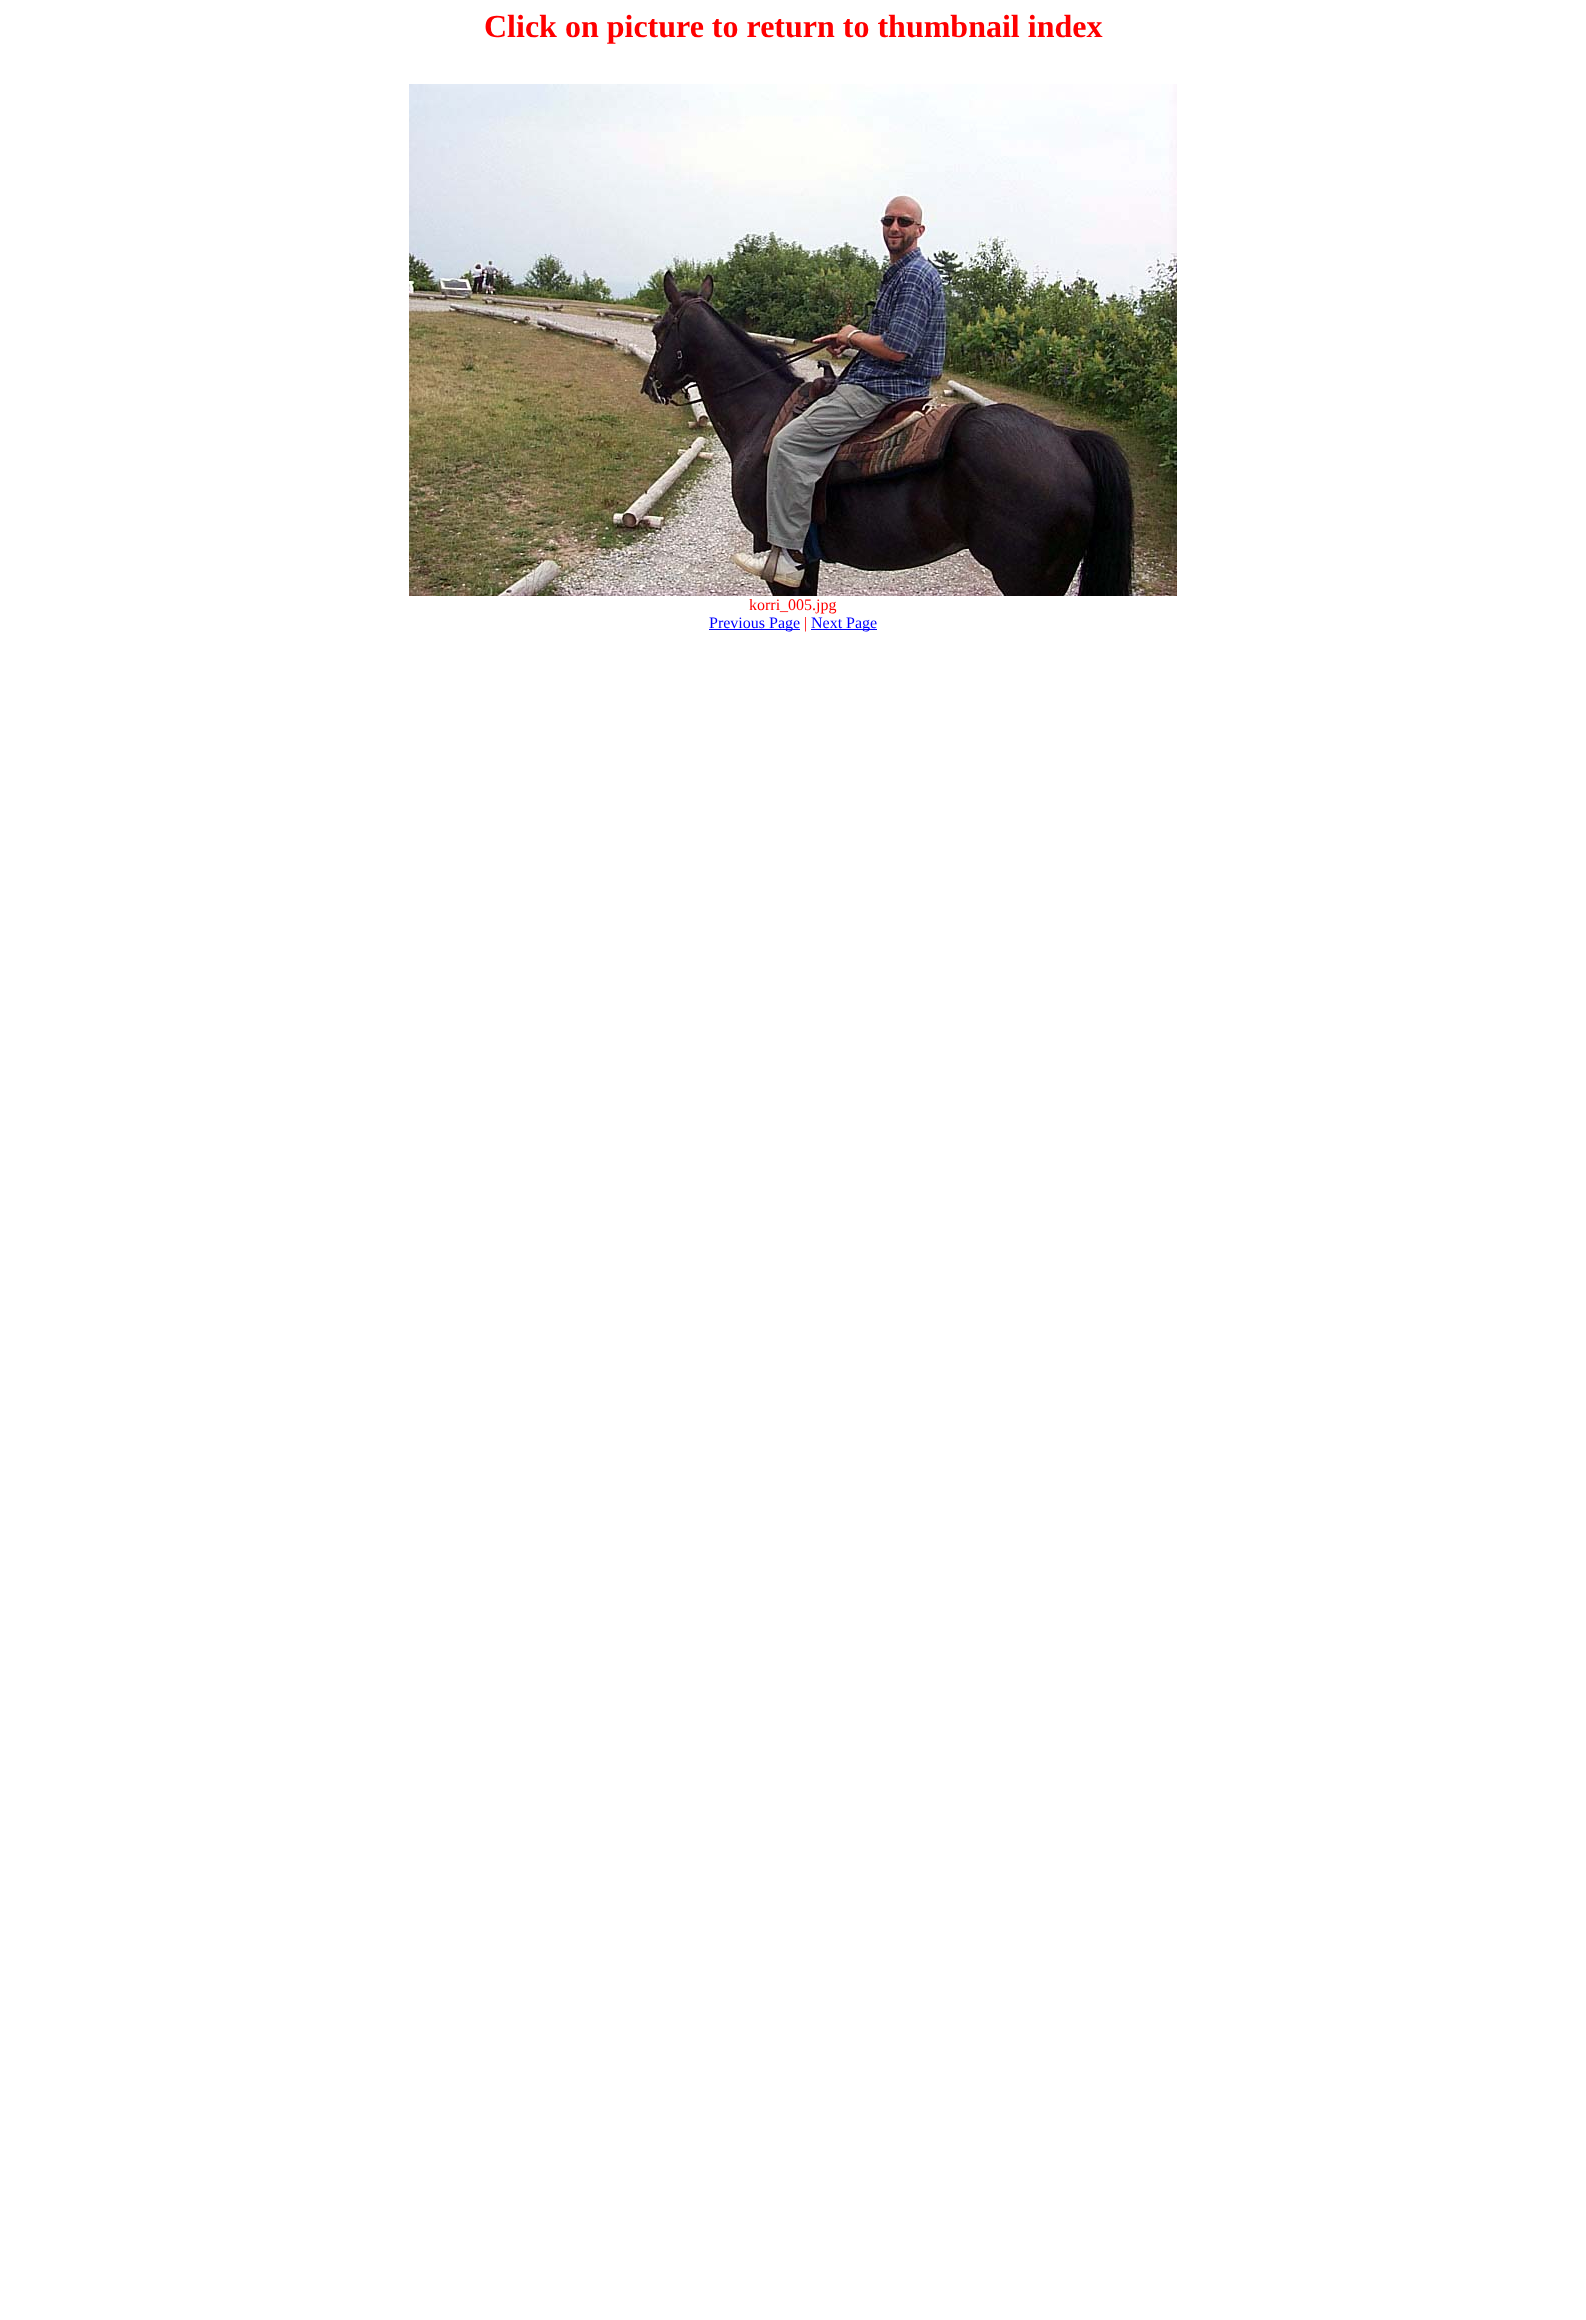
<svg xmlns="http://www.w3.org/2000/svg" width="1586" height="2320" viewBox="0 0 1586 2320">
  <style>
    .t1 { font: bold 32px Liberation Serif; fill: #f00; }
    .t2 { font: 16px Liberation Serif; fill: #f00; }
    .t3 { font: 16px Liberation Serif; fill: #00f; }
  </style>
  <rect width="100%" height="100%" fill="#fff"/>
  <text x="484" y="37" class="t1">Click on picture to return to thumbnail index</text>
  <image x="409" y="84" width="768" height="512" href="images/1.png"/>
  <text x="749" y="610" class="t2">korri_005.jpg</text>
  <rect x="709" y="629" width="91" height="1" fill="#00f"/>
  <text x="709" y="628" class="t3">Previous Page</text>
  <text x="804" y="628" class="t2">|</text>
  <rect x="811" y="629" width="66" height="1" fill="#00f"/>
  <text x="811" y="628" class="t3">Next Page</text>
</svg>
